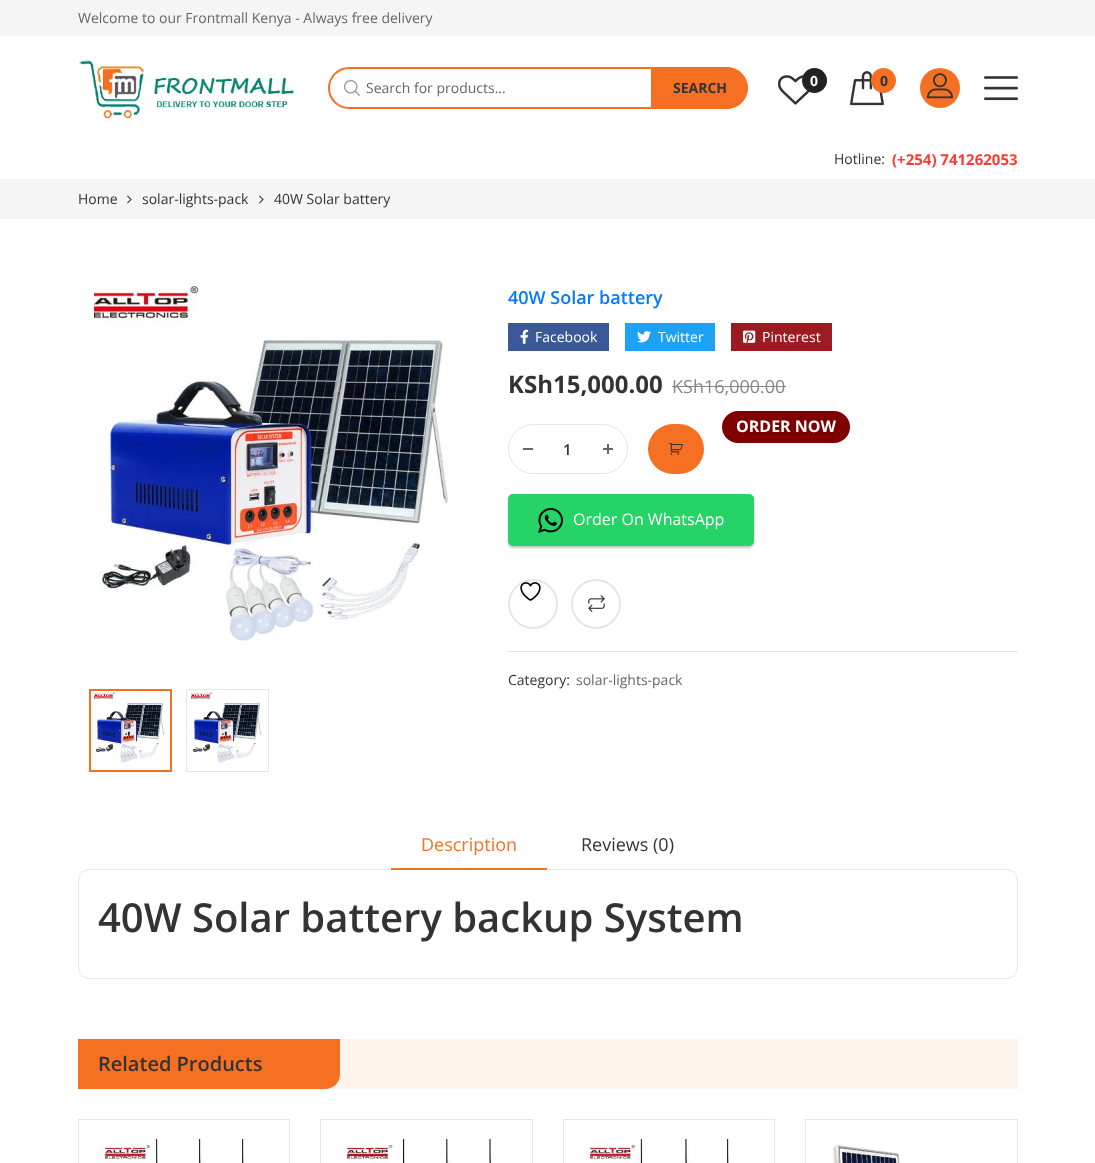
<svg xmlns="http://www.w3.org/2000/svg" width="1095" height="1163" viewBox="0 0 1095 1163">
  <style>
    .t1 { font: 14px Open Sans; fill: #666; }
    .t2 { font: bold 14px Open Sans; fill: #333; }
    .t3 { font: bold 14px Open Sans; fill: #fff; }
    .t4 { font: 14px Open Sans; fill: #333; }
    .t5 { font: bold 15px Open Sans; fill: #ff3b30; }
    .t6 { font: 600 18px Open Sans; fill: #007aff; }
    .t7 { font: 14px Open Sans; fill: #fff; }
    .t8 { font: bold 24px Open Sans; fill: #333; }
    .t9 { font: 18px Open Sans; fill: #888; }
    .t10 { font: 600 15px Open Sans; fill: #333; }
    .t11 { font: bold 16px Open Sans; fill: #fff; }
    .t12 { font: 16px Open Sans; fill: #fff; }
    .t13 { font: 18px Open Sans; fill: #f57023; }
    .t14 { font: 18px Open Sans; fill: #333; }
    .t15 { font: 600 40px Open Sans; fill: #333; }
    .t16 { font: 600 20px Open Sans; fill: #333; }
  </style>
  <rect width="100%" height="100%" fill="#fff"/>
  <rect x="0" y="0" width="1095" height="36" fill="#f5f5f5"/>
  <text x="78" y="23" class="t1">Welcome to our Frontmall Kenya - Always free delivery</text>
  <image x="79" y="60" width="215" height="59" href="images/1.png"/>
  <image x="344" y="80" width="16" height="16" href="images/2.png"/>
  <path d="M349 68H652V108H349C338 108 329 99 329 88C329 77 338 68 349 68Z" fill="none" stroke="#f57023" stroke-width="2"/>
  <text x="366" y="93" class="t1">Search for products...</text>
  <path d="M653 67H727C738.5 67 748 76.5 748 88C748 99.5 738.5 109 727 109H653Z" fill="#f57023"/>
  <text x="673" y="93" class="t2">SEARCH</text>
  <image x="778" y="75" width="32" height="30" href="images/3.png"/>
  <circle cx="814.5" cy="80.5" r="12.5" fill="#222"/>
  <text x="810" y="86" class="t3">0</text>
  <image x="850" y="71" width="34" height="35" href="images/4.png"/>
  <circle cx="883.5" cy="80.5" r="12.5" fill="#f57023"/>
  <text x="880" y="86" class="t2">0</text>
  <circle cx="940" cy="88" r="20" fill="#f57023"/>
  <image x="927" y="73" width="26" height="26" href="images/5.png"/>
  <image x="984" y="76" width="34" height="25" href="images/6.png"/>
  <text x="834" y="164" class="t4">Hotline:</text>
  <text x="892" y="165" class="t5">(+254) 741262053</text>
  <rect x="0" y="179" width="1095" height="40" fill="#f5f5f5"/>
  <text x="78" y="204" class="t4">Home</text>
  <image x="127" y="195" width="5" height="9" href="images/7.png"/>
  <text x="142" y="204" class="t4">solar-lights-pack</text>
  <image x="259" y="195" width="5" height="9" href="images/7.png"/>
  <text x="274" y="204" class="t4">40W Solar battery</text>
  <image x="88" y="284" width="361" height="358" href="images/8.png"/>
  <rect x="90" y="690" width="81" height="81" fill="none" stroke="#f57023" stroke-width="2"/>
  <image x="93" y="692" width="71" height="71" href="images/9.png"/>
  <rect x="186.5" y="689.5" width="82" height="82" fill="none" stroke="#e6e6e6"/>
  <image x="190" y="692" width="71" height="71" href="images/9.png"/>
  <text x="508" y="304" class="t6">40W Solar battery</text>
  <rect x="508" y="323" width="101" height="28" fill="#3b5998"/>
  <image x="520" y="329" width="9" height="15" href="images/10.png"/>
  <text x="535" y="342" class="t7">Facebook</text>
  <rect x="625" y="323" width="90" height="28" fill="#1da1f2"/>
  <image x="637" y="331" width="14" height="12" href="images/11.png"/>
  <text x="658" y="342" class="t7">Twitter</text>
  <rect x="731" y="323" width="101" height="28" fill="#9a1c20"/>
  <image x="743" y="330" width="13" height="13" href="images/12.png"/>
  <text x="762" y="342" class="t7">Pinterest</text>
  <text x="508" y="393" class="t8">KSh15,000.00</text>
  <text x="672" y="393" class="t9">KSh16,000.00</text>
  <rect x="672" y="386" width="114" height="1" fill="#888"/>
  <rect x="508.5" y="424.5" width="119" height="49" rx="24.5" fill="none" stroke="#e6e6e6"/>
  <rect x="523" y="448" width="10" height="2" fill="#666"/>
  <text x="563" y="455" class="t10">1</text>
  <rect x="603" y="448" width="10" height="2" fill="#666"/>
  <rect x="607" y="444" width="2" height="10" fill="#666"/>
  <rect x="648" y="424" width="56" height="50" rx="25" fill="#f57023"/>
  <image x="669" y="442" width="14" height="13" href="images/13.png"/>
  <rect x="722" y="411" width="128" height="32" rx="16" fill="#800000"/>
  <text x="736" y="432" class="t11">ORDER NOW</text>
  <rect x="508" y="496" width="246" height="52" rx="5" fill="#2d3e4f4d" filter="blur(1px)"/>
  <rect x="508" y="494" width="246" height="52" rx="5" fill="#25d366"/>
  <image x="538" y="508" width="25" height="25" href="images/14.png"/>
  <text x="573" y="525" class="t12">Order On WhatsApp</text>
  <circle cx="533" cy="604" r="24" fill="none" stroke="#e6e6e6" stroke-width="2"/>
  <image x="520" y="582" width="21" height="19" href="images/15.png"/>
  <circle cx="596" cy="604" r="24" fill="none" stroke="#e6e6e6" stroke-width="2"/>
  <image x="588" y="595" width="17" height="17" href="images/16.png"/>
  <rect x="508" y="651" width="510" height="1" fill="#e6e6e6"/>
  <text x="508" y="685" class="t4">Category:</text>
  <text x="576" y="685" class="t1">solar-lights-pack</text>
  <rect x="78.5" y="869.5" width="939" height="109" rx="11.5" fill="none" stroke="#e6e6e6"/>
  <rect x="391" y="868" width="156" height="2" fill="#f57023"/>
  <text x="421" y="851" class="t13">Description</text>
  <text x="581" y="851" class="t14">Reviews (0)</text>
  <text x="98" y="932" class="t15">40W Solar battery backup System</text>
  <rect x="325" y="1039" width="693" height="50" fill="#fdf4ed"/>
  <path d="M78 1039H340V1074C340 1082.5 333.5 1089 325 1089H78Z" fill="#f57023"/>
  <text x="98" y="1071" class="t16">Related Products</text>
  <rect x="78.5" y="1119.5" width="211" height="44" fill="none" stroke="#e6e6e6"/>
  <image x="98" y="1139" width="146" height="24" href="images/17.png"/>
  <rect x="320.5" y="1119.5" width="212" height="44" fill="none" stroke="#e6e6e6"/>
  <image x="340" y="1139" width="152" height="24" href="images/18.png"/>
  <rect x="563.5" y="1119.5" width="211" height="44" fill="none" stroke="#e6e6e6"/>
  <image x="583" y="1139" width="146" height="24" href="images/19.png"/>
  <rect x="805.5" y="1119.5" width="212" height="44" fill="none" stroke="#e6e6e6"/>
  <image x="832" y="1144" width="71" height="19" href="images/20.png"/>
</svg>
